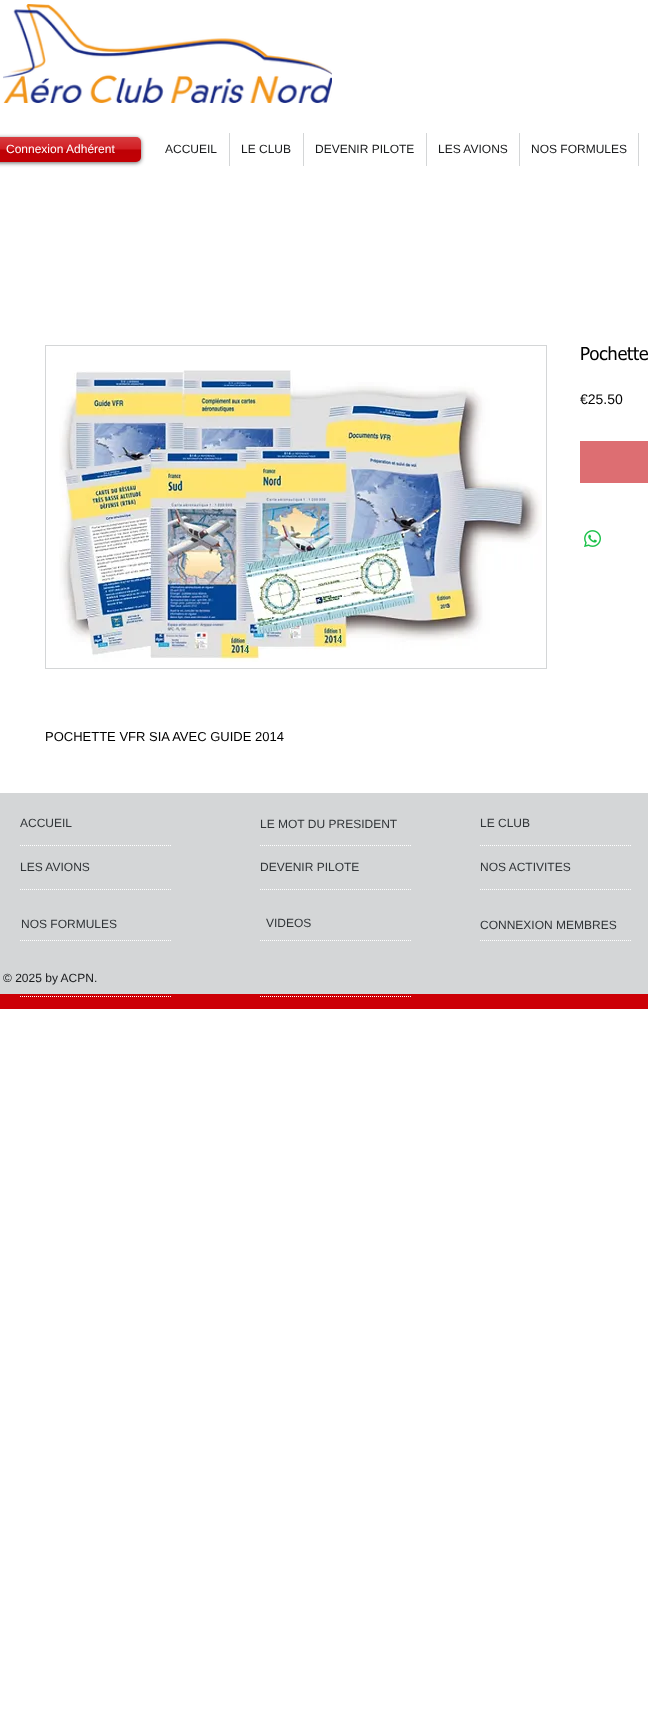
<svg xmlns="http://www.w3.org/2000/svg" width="648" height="1729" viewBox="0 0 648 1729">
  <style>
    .t1 { font: 12px Liberation Sans; fill: #fff; }
    .t2 { font: 12px Liberation Sans; fill: #181a1c; }
    .t3 { font: 18px tahoma; fill: #000; }
    .t4 { font: 14px Liberation Sans; fill: #000; }
    .t5 { font: 13px Liberation Sans; fill: #000; }
    .t6 { font: 12px Liberation Sans; fill: #313538; }
  </style>
  <rect width="100%" height="100%" fill="#fff"/>
  <image x="3" y="4" width="329" height="99" href="images/1.png"/>
  <rect x="-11" y="138" width="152" height="25" rx="5" fill="#00000099" filter="blur(2px)"/>
  <rect x="-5" y="137" width="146" height="25" rx="5" fill="#cc0006"/>
  <image x="0" y="137" width="141" height="25" href="images/2.png"/>
  <text x="6" y="153" class="t1">Connexion Adhérent</text>
  <text x="165" y="153" class="t2">ACCUEIL</text>
  <rect x="229" y="133" width="1" height="33" fill="#d4d6d7"/>
  <text x="241" y="153" class="t2">LE CLUB</text>
  <rect x="303" y="133" width="1" height="33" fill="#d4d6d7"/>
  <text x="315" y="153" class="t2">DEVENIR PILOTE</text>
  <rect x="426" y="133" width="1" height="33" fill="#d4d6d7"/>
  <text x="438" y="153" class="t2">LES AVIONS</text>
  <rect x="519" y="133" width="1" height="33" fill="#d4d6d7"/>
  <text x="531" y="153" class="t2">NOS FORMULES</text>
  <rect x="638" y="133" width="1" height="33" fill="#d4d6d7"/>
  <text x="580" y="360" class="t3">Pochette</text>
  <text x="580" y="404" class="t4">€25.50</text>
  <rect x="580" y="441" width="68" height="42" fill="#dd6e72"/>
  <image x="584" y="530" width="17" height="17" href="images/3.png"/>
  <rect x="45.5" y="345.5" width="501" height="323" fill="none" stroke="#d4d6d7"/>
  <image x="59" y="370" width="483" height="292" href="images/4.png"/>
  <text x="45" y="741" class="t5">POCHETTE VFR SIA AVEC GUIDE 2014</text>
  <rect x="0" y="793" width="648" height="201" fill="#d4d6d7"/>
  <text x="20" y="827" class="t6">ACCUEIL</text>
  <text x="260" y="828" class="t6">LE MOT DU PRESIDENT</text>
  <text x="480" y="827" class="t6">LE CLUB</text>
  <path d="M20 845.5H171" fill="none" stroke="#fff" stroke-dasharray="1 1"/>
  <path d="M260 845.5H411" fill="none" stroke="#fff" stroke-dasharray="1 1"/>
  <path d="M480 845.5H631" fill="none" stroke="#fff" stroke-dasharray="1 1"/>
  <text x="20" y="871" class="t6">LES AVIONS</text>
  <text x="260" y="871" class="t6">DEVENIR PILOTE</text>
  <text x="480" y="871" class="t6">NOS ACTIVITES</text>
  <path d="M20 889.5H171" fill="none" stroke="#fff" stroke-dasharray="1 1"/>
  <path d="M260 889.5H411" fill="none" stroke="#fff" stroke-dasharray="1 1"/>
  <path d="M480 889.5H631" fill="none" stroke="#fff" stroke-dasharray="1 1"/>
  <text x="21" y="928" class="t6">NOS FORMULES</text>
  <text x="266" y="927" class="t6">VIDEOS</text>
  <text x="480" y="929" class="t6">CONNEXION MEMBRES</text>
  <path d="M20 940.5H171" fill="none" stroke="#fff" stroke-dasharray="1 1"/>
  <path d="M260 940.5H411" fill="none" stroke="#fff" stroke-dasharray="1 1"/>
  <path d="M480 940.5H631" fill="none" stroke="#fff" stroke-dasharray="1 1"/>
  <text x="3" y="982" class="t2">© 2025 by ACPN.</text>
  <rect x="0" y="994" width="648" height="15" fill="#cc0006"/>
  <path d="M20 996.5H171" fill="none" stroke="#fff" stroke-dasharray="1 1"/>
  <path d="M260 996.5H411" fill="none" stroke="#fff" stroke-dasharray="1 1"/>
</svg>
